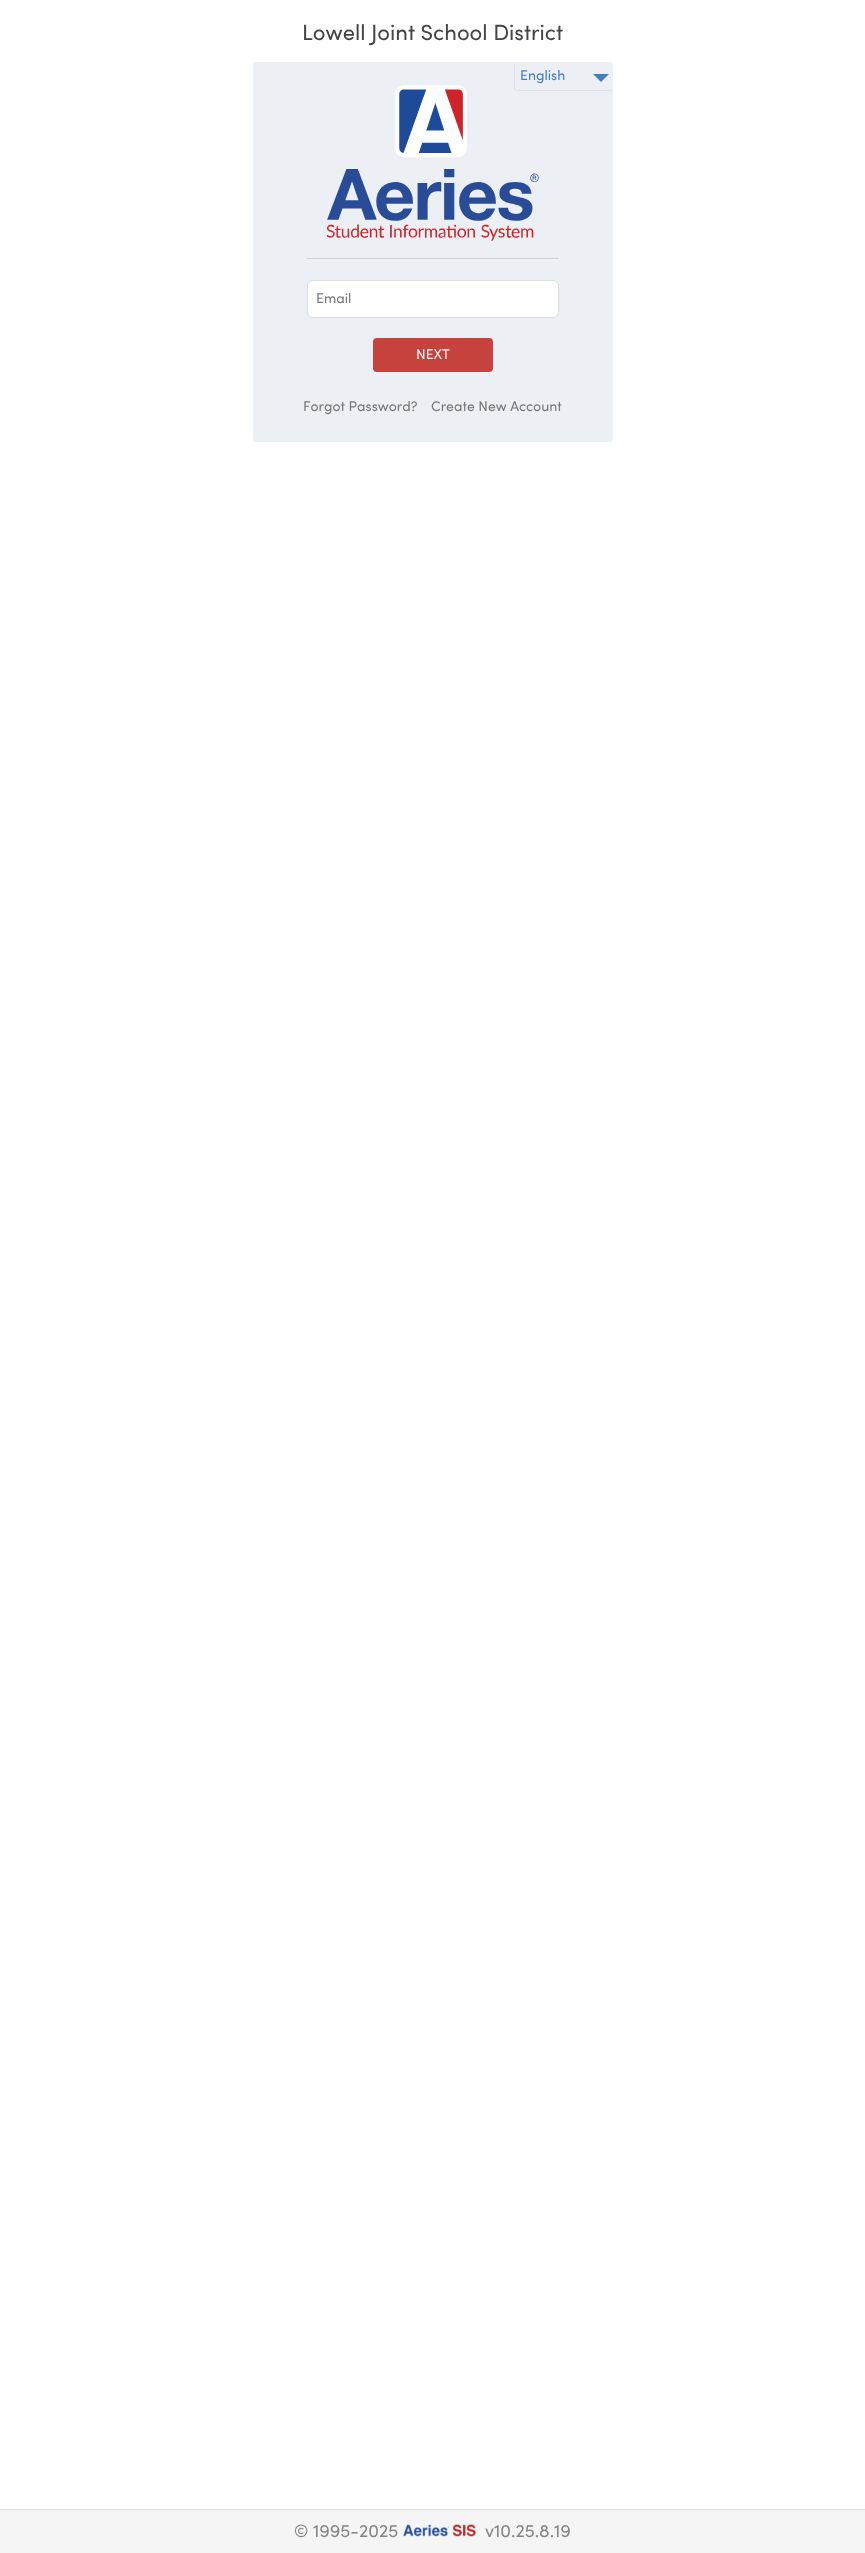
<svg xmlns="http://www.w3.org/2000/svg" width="865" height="2553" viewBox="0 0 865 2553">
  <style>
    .t1 { font: 22px Sofia; fill: #444; }
    .t2 { font: 14px Sofia; fill: #437ec1; }
    .t3 { font: 14px Sofia; fill: #777879; }
    .t4 { font: 14px Sofia; fill: #f5f5f5; }
    .t5 { font: 18px Sofia; fill: #858585; }
  </style>
  <rect width="100%" height="100%" fill="#fff"/>
  <text x="302" y="40" class="t1">Lowell Joint School District</text>
  <rect x="253" y="62" width="360" height="380" rx="3" fill="#ecf0f5"/>
  <path d="M593 74H609L601 82Z" fill="#437ec1"/>
  <image x="326" y="85" width="213" height="156" href="images/1.png"/>
  <path d="M517 62H610C612 62 613 63 613 65V88C613 90 612 91 610 91H517C515 91 514 90 514 88V65C514 63 515 62 517 62ZM517 62H610C612 62 613 63 613 65V88C613 89 612 90 610 90H517C516 90 515 89 515 88V65C515 63 516 62 517 62Z" fill="#e1e1e1" fill-rule="evenodd"/>
  <text x="520" y="80" class="t2">English</text>
  <rect x="307" y="258" width="252" height="1" fill="#cdd1d5"/>
  <rect x="307" y="259" width="252" height="1" fill="#eff2f7"/>
  <rect x="307.5" y="280.5" width="251" height="37" rx="5.5" fill="#fff" stroke="#ddd"/>
  <text x="316" y="303" class="t3">Email</text>
  <rect x="373" y="338" width="120" height="34" rx="4" fill="#c6423c"/>
  <text x="416" y="359" class="t4">NEXT</text>
  <text x="303" y="411" class="t3">Forgot Password?</text>
  <text x="431" y="411" class="t3">Create New Account</text>
  <rect x="0" y="2510" width="865" height="43" fill="#f5f5f5"/>
  <rect x="0" y="2509" width="865" height="1" fill="#e2e2e2"/>
  <text x="294" y="2537" class="t5">© 1995-2025</text>
  <image x="403" y="2524" width="73" height="13" href="images/2.png"/>
  <text x="485" y="2537" class="t5">v10.25.8.19</text>
</svg>
